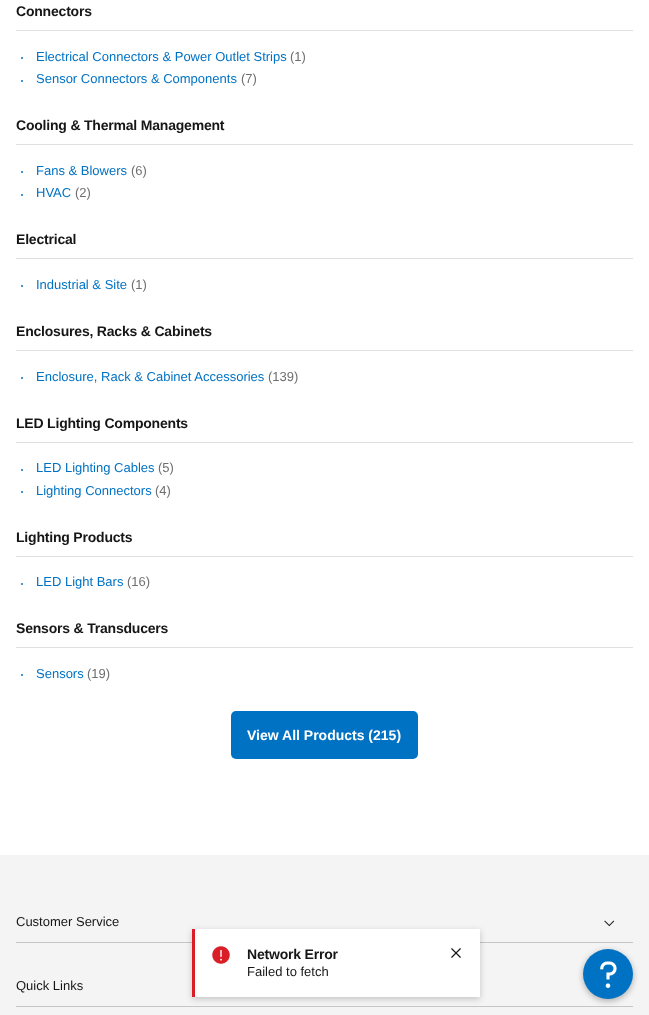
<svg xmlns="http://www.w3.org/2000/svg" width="649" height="1015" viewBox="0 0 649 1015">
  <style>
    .t1 { font: bold 14px Liberation Sans; letter-spacing: -0.2px; fill: #161616; }
    .t2 { font: 13px Liberation Sans; fill: #0072c3; }
    .t3 { font: 13px Liberation Sans; fill: #6f6f6f; }
    .t4 { font: bold 14px Liberation Sans; fill: #fff; }
    .t5 { font: 13px Liberation Sans; fill: #161616; }
  </style>
  <rect width="100%" height="100%" fill="#fff"/>
  <rect x="16" y="30" width="617" height="1" fill="#e0e0e0"/>
  <text x="16" y="16" class="t1">Connectors</text>
  <circle cx="22" cy="58" r="1" fill="#0072c3"/>
  <text x="36" y="61" class="t2">Electrical Connectors &amp; Power Outlet Strips</text>
  <text x="290" y="61" class="t3">(1)</text>
  <circle cx="22" cy="81" r="1" fill="#0072c3"/>
  <text x="36" y="83" class="t2">Sensor Connectors &amp; Components</text>
  <text x="241" y="83" class="t3">(7)</text>
  <rect x="16" y="144" width="617" height="1" fill="#e0e0e0"/>
  <text x="16" y="130" class="t1">Cooling &amp; Thermal Management</text>
  <circle cx="22" cy="172" r="1" fill="#0072c3"/>
  <text x="36" y="175" class="t2">Fans &amp; Blowers</text>
  <text x="131" y="175" class="t3">(6)</text>
  <circle cx="22" cy="195" r="1" fill="#0072c3"/>
  <text x="36" y="197" class="t2">HVAC</text>
  <text x="75" y="197" class="t3">(2)</text>
  <rect x="16" y="258" width="617" height="1" fill="#e0e0e0"/>
  <text x="16" y="244" class="t1">Electrical</text>
  <circle cx="22" cy="286" r="1" fill="#0072c3"/>
  <text x="36" y="289" class="t2">Industrial &amp; Site</text>
  <text x="131" y="289" class="t3">(1)</text>
  <rect x="16" y="350" width="617" height="1" fill="#e0e0e0"/>
  <text x="16" y="336" class="t1">Enclosures, Racks &amp; Cabinets</text>
  <circle cx="22" cy="378" r="1" fill="#0072c3"/>
  <text x="36" y="381" class="t2">Enclosure, Rack &amp; Cabinet Accessories</text>
  <text x="268" y="381" class="t3">(139)</text>
  <rect x="16" y="442" width="617" height="1" fill="#e0e0e0"/>
  <text x="16" y="428" class="t1">LED Lighting Components</text>
  <circle cx="22" cy="470" r="1" fill="#0072c3"/>
  <text x="36" y="472" class="t2">LED Lighting Cables</text>
  <text x="158" y="472" class="t3">(5)</text>
  <circle cx="22" cy="492" r="1" fill="#0072c3"/>
  <text x="36" y="495" class="t2">Lighting Connectors</text>
  <text x="155" y="495" class="t3">(4)</text>
  <rect x="16" y="556" width="617" height="1" fill="#e0e0e0"/>
  <text x="16" y="542" class="t1">Lighting Products</text>
  <circle cx="22" cy="584" r="1" fill="#0072c3"/>
  <text x="36" y="586" class="t2">LED Light Bars</text>
  <text x="127" y="586" class="t3">(16)</text>
  <rect x="16" y="647" width="617" height="1" fill="#e0e0e0"/>
  <text x="16" y="633" class="t1">Sensors &amp; Transducers</text>
  <circle cx="22" cy="675" r="1" fill="#0072c3"/>
  <text x="36" y="678" class="t2">Sensors</text>
  <text x="87" y="678" class="t3">(19)</text>
  <rect x="231" y="711" width="187" height="48" rx="5" fill="#0072c3"/>
  <text x="247" y="740" class="t4">View All Products (215)</text>
  <rect x="0" y="855" width="649" height="160" fill="#f4f4f4"/>
  <rect x="16" y="942" width="617" height="1" fill="#c6c6c6"/>
  <rect x="16" y="1006" width="617" height="1" fill="#c6c6c6"/>
  <rect x="192" y="931" width="288" height="68" fill="#00000033" filter="blur(3px)"/>
  <rect x="195" y="929" width="285" height="68" fill="#fff"/>
  <rect x="192" y="929" width="3" height="68" fill="#da1e28"/>
  <image x="212" y="946" width="18" height="18" href="images/1.png"/>
  <text x="247" y="959" class="t1">Network Error</text>
  <text x="247" y="976" class="t5">Failed to fetch</text>
  <image x="451" y="948" width="10" height="10" href="images/2.png"/>
  <text x="16" y="926" class="t5">Customer Service</text>
  <image x="604" y="920" width="11" height="7" href="images/3.png"/>
  <text x="16" y="990" class="t5">Quick Links</text>
  <rect x="583" y="951" width="50" height="50" rx="25" fill="#0000004d" filter="blur(3px)"/>
  <circle cx="608" cy="974" r="25" fill="#0072c3"/>
  <image x="600" y="961" width="17" height="27" href="images/4.png"/>
</svg>
